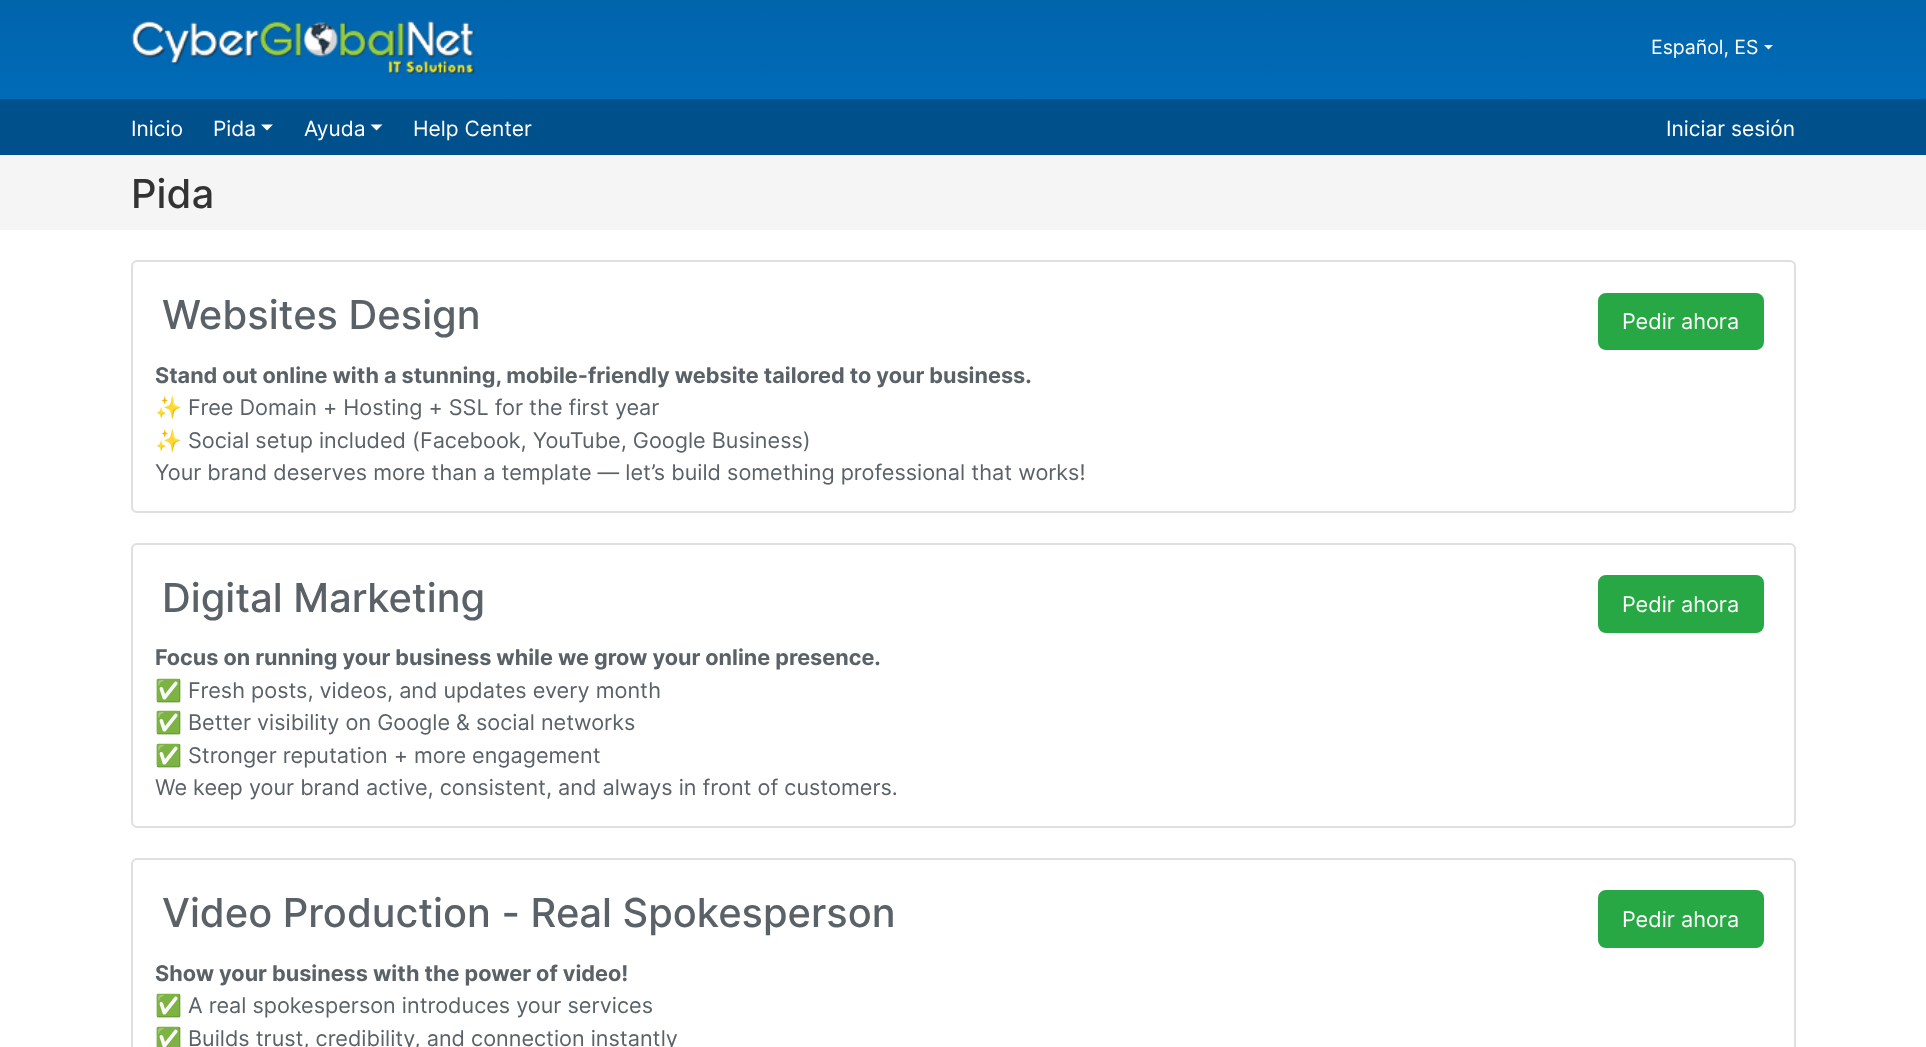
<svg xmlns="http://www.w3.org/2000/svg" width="1926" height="1047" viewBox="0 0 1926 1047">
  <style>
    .t1 { font: 19.5px Inter; fill: #fff; }
    .t2 { font: 21px Inter; fill: #fff; }
    .t3 { font: 500 39.9px Inter; fill: #333; }
    .t4 { font: 500 39.9px Inter; fill: #5a6268; }
    .t5 { font: 21.65px Inter; fill: #fff; }
    .t6 { font: bold 21.65px Inter; fill: #5a6268; }
    .t7 { font: 21.65px Noto Color Emoji; fill: #5a6268; }
    .t8 { font: 21.65px Inter; fill: #5a6268; }
  </style>
  <defs>
    <linearGradient id="g1" gradientUnits="userSpaceOnUse" x1="963" y1="0" x2="963" y2="99"><stop offset="0" stop-color="#0064ab"/><stop offset="1" stop-color="#006bb8"/></linearGradient>
  </defs>
  <rect width="100%" height="100%" fill="#fff"/>
  <rect x="0" y="0" width="1926" height="99" fill="url(#g1)"/>
  <image x="130" y="19" width="345" height="55" href="images/1.png"/>
  <text x="1651" y="54" class="t1">Español, ES</text>
  <path d="M1764 45H1773L1768.5 49.5Z" fill="#fff"/>
  <rect x="0" y="99" width="1926" height="56" fill="#00508b"/>
  <text x="131" y="136" class="t2">Inicio</text>
  <text x="213" y="136" class="t2">Pida</text>
  <path d="M261 124.5H273L267 130.5Z" fill="#fff"/>
  <text x="304" y="136" class="t2">Ayuda</text>
  <path d="M370.5 124.5H382.5L376.5 130.5Z" fill="#fff"/>
  <text x="413" y="136" class="t2">Help Center</text>
  <text x="1666" y="136" class="t2">Iniciar sesión</text>
  <rect x="0" y="155" width="1926" height="75" fill="#f5f5f5"/>
  <text x="131" y="208" class="t3">Pida</text>
  <rect x="132" y="261" width="1663" height="251" rx="5" fill="none" stroke="#dfdfdf" stroke-width="2"/>
  <text x="162" y="329" class="t4">Websites Design</text>
  <rect x="1599" y="294" width="164" height="55" rx="7" fill="#28a745" stroke="#28a745" stroke-width="2"/>
  <text x="1622" y="329" class="t5">Pedir ahora</text>
  <text x="155" y="383" class="t6">Stand out online with a stunning, mobile-friendly website tailored to your business.</text>
  <text x="155" y="415" class="t7">✨</text>
  <text x="188" y="415" class="t8">Free Domain + Hosting + SSL for the first year</text>
  <text x="155" y="448" class="t7">✨</text>
  <text x="188" y="448" class="t8">Social setup included (Facebook, YouTube, Google Business)</text>
  <text x="155" y="480" class="t8">Your brand deserves more than a template — let’s build something professional that works!</text>
  <rect x="132" y="544" width="1663" height="283" rx="5" fill="none" stroke="#dfdfdf" stroke-width="2"/>
  <text x="162" y="612" class="t4">Digital Marketing</text>
  <rect x="1599" y="576" width="164" height="56" rx="7" fill="#28a745" stroke="#28a745" stroke-width="2"/>
  <text x="1622" y="612" class="t5">Pedir ahora</text>
  <text x="155" y="665" class="t6">Focus on running your business while we grow your online presence.</text>
  <text x="155" y="698" class="t7">✅</text>
  <text x="188" y="698" class="t8">Fresh posts, videos, and updates every month</text>
  <text x="155" y="730" class="t7">✅</text>
  <text x="188" y="730" class="t8">Better visibility on Google &amp; social networks</text>
  <text x="155" y="763" class="t7">✅</text>
  <text x="188" y="763" class="t8">Stronger reputation + more engagement</text>
  <text x="155" y="795" class="t8">We keep your brand active, consistent, and always in front of customers.</text>
  <rect x="132" y="859" width="1663" height="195" rx="5" fill="none" stroke="#dfdfdf" stroke-width="2"/>
  <text x="162" y="927" class="t4">Video Production - Real Spokesperson</text>
  <rect x="1599" y="891" width="164" height="56" rx="7" fill="#28a745" stroke="#28a745" stroke-width="2"/>
  <text x="1622" y="927" class="t5">Pedir ahora</text>
  <text x="155" y="981" class="t6">Show your business with the power of video!</text>
  <text x="155" y="1013" class="t7">✅</text>
  <text x="188" y="1013" class="t8">A real spokesperson introduces your services</text>
  <text x="155" y="1046" class="t7">✅</text>
  <text x="188" y="1046" class="t8">Builds trust, credibility, and connection instantly</text>
</svg>
